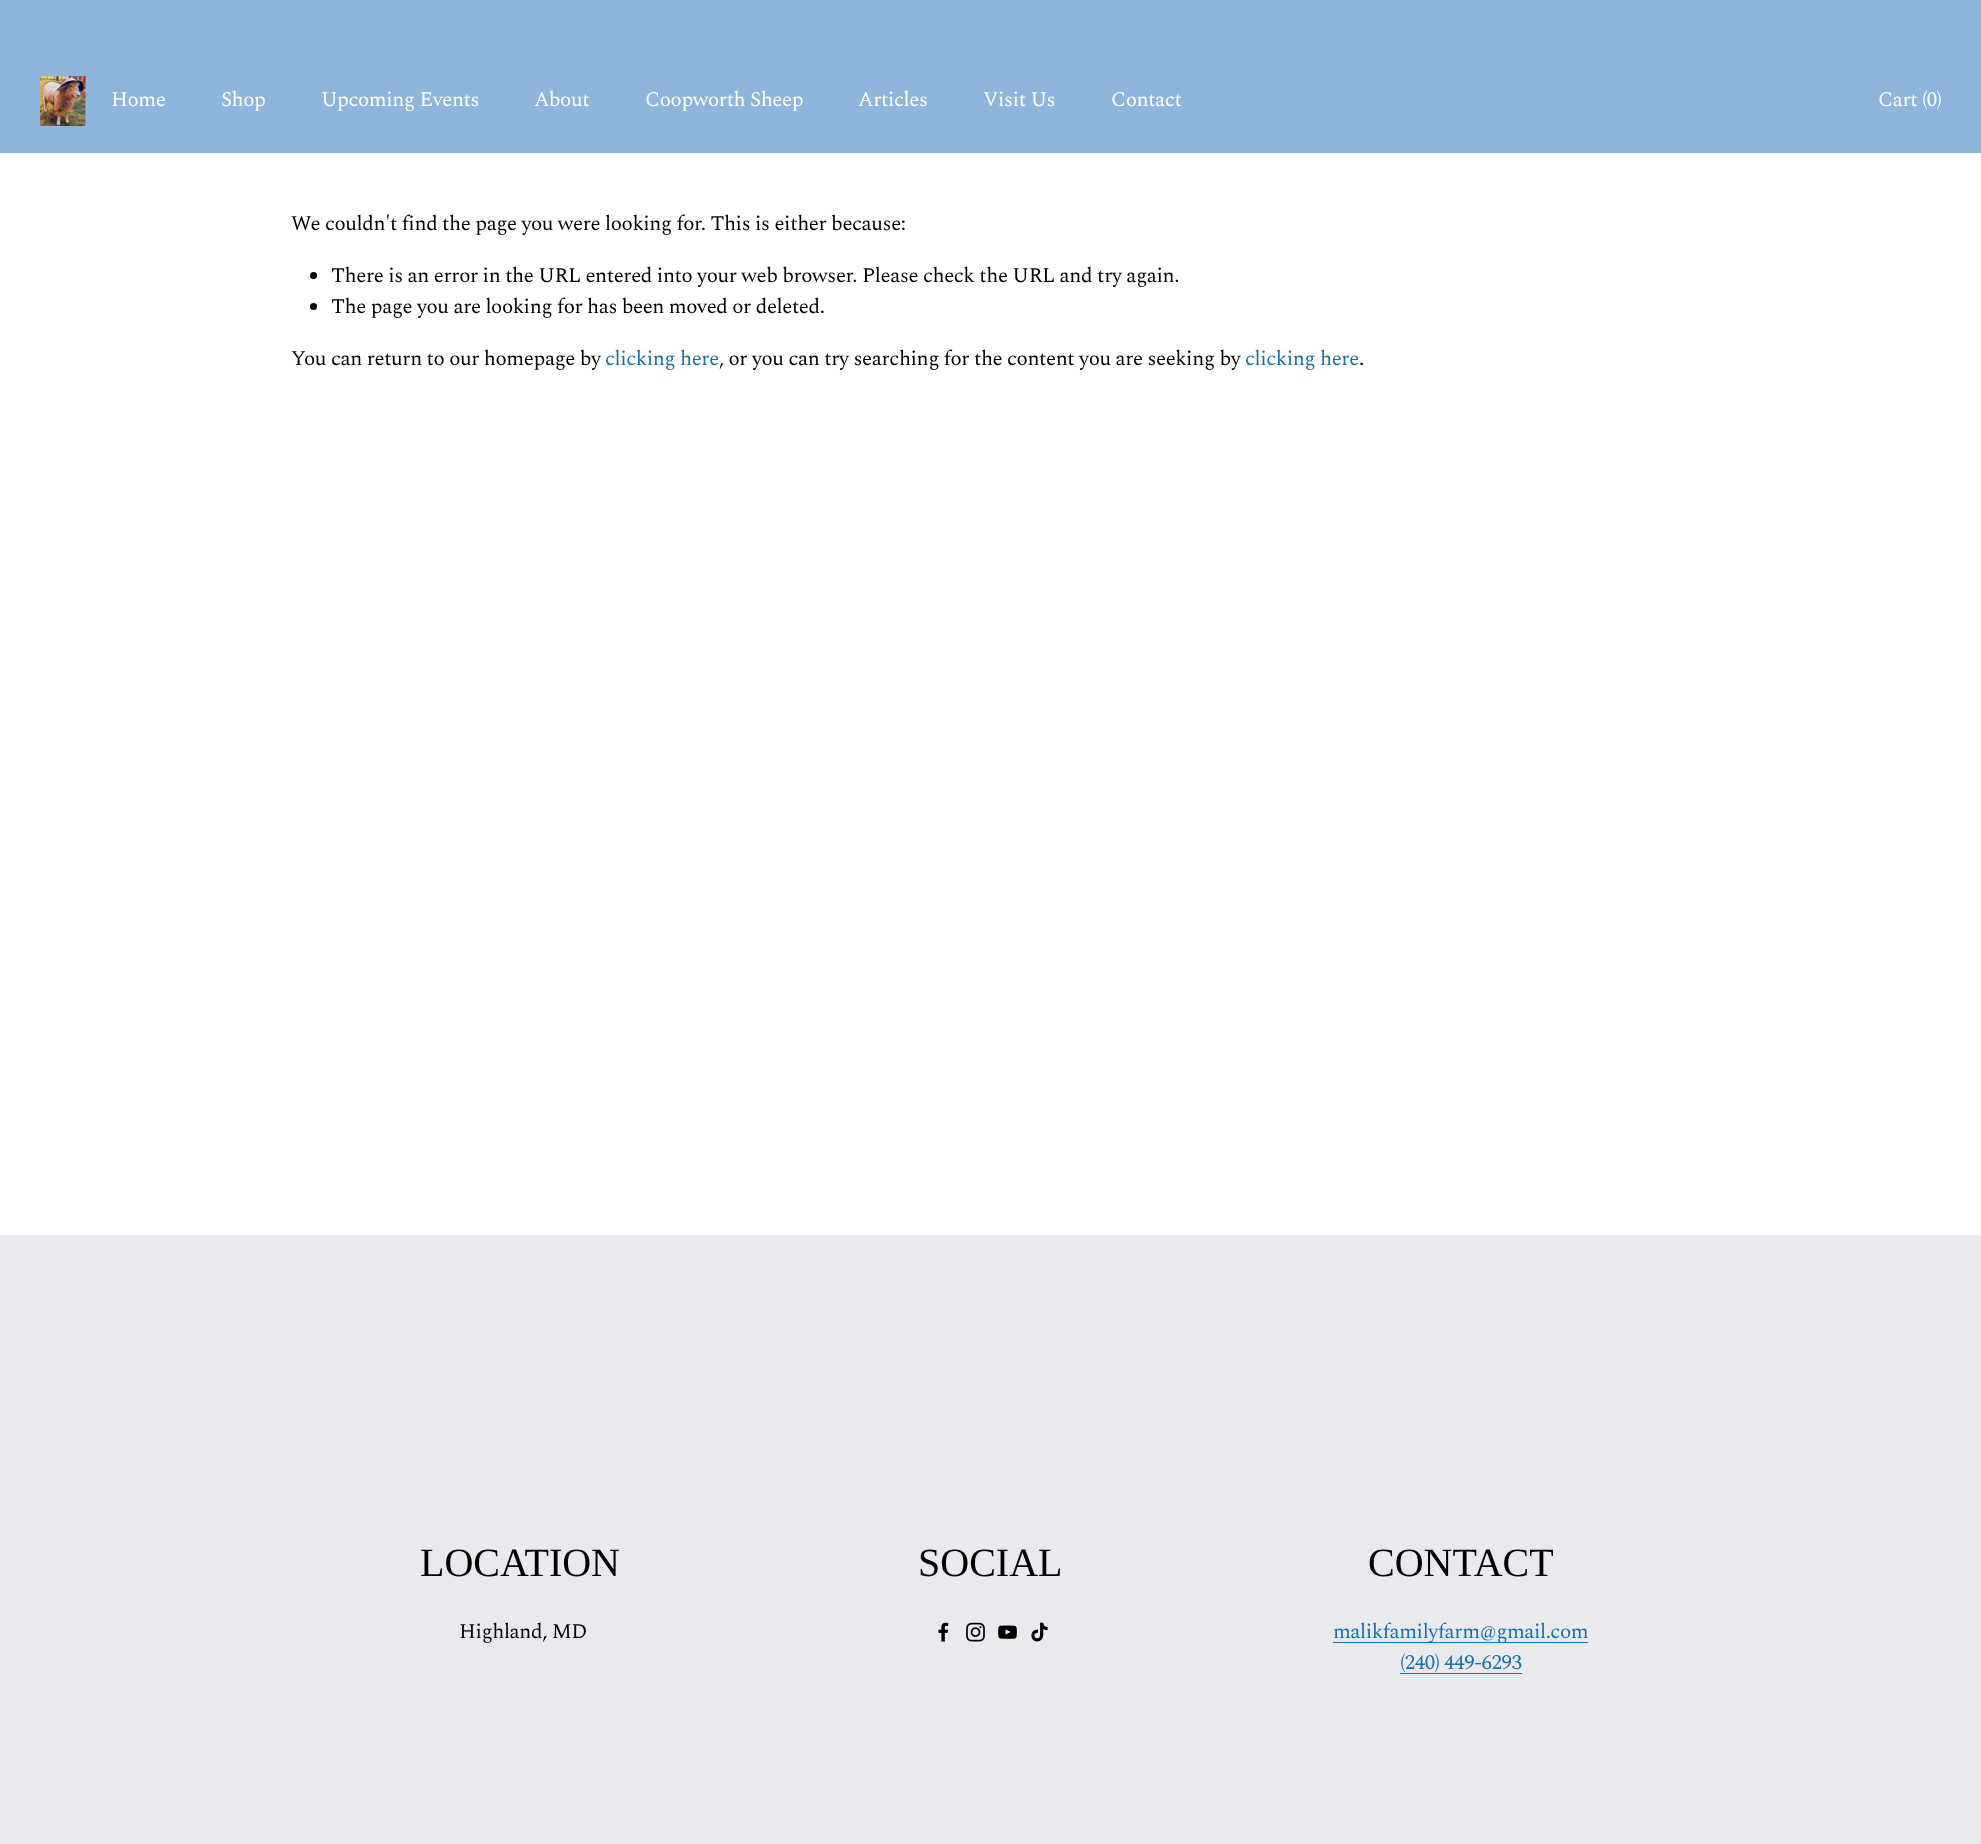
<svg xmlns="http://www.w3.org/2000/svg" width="1981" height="1844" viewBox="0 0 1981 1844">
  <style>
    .t1 { font: 20.8px Spectral; letter-spacing: -0.42px; fill: #fff; }
    .t2 { font: 20.8px Spectral; letter-spacing: -0.42px; fill: #000; }
    .t3 { font: 20.8px Spectral; letter-spacing: -0.42px; fill: #1470af; }
    .t4 { font: 40px Liberation Serif; fill: #000; }
  </style>
  <rect width="100%" height="100%" fill="#fff"/>
  <rect x="0" y="0" width="1981" height="153" fill="#8eb6dc"/>
  <image x="40" y="76" width="46" height="50" href="images/1.png"/>
  <text x="111" y="106" class="t1">Home</text>
  <text x="221" y="106" class="t1">Shop</text>
  <text x="321" y="106" class="t1">Upcoming Events</text>
  <text x="534" y="106" class="t1">About</text>
  <text x="645" y="106" class="t1">Coopworth Sheep</text>
  <text x="858" y="106" class="t1">Articles</text>
  <text x="983" y="106" class="t1">Visit Us</text>
  <text x="1111" y="106" class="t1">Contact</text>
  <text x="1878" y="106" class="t1">Cart (0)</text>
  <text x="291" y="230" class="t2">We couldn't find the page you were looking for. This is either because:</text>
  <circle cx="313.5" cy="275.5" r="3.5" fill="#000"/>
  <text x="331" y="282" class="t2">There is an error in the URL entered into your web browser. Please check the URL and try again.</text>
  <circle cx="313.5" cy="306.5" r="3.5" fill="#000"/>
  <text x="331" y="313" class="t2">The page you are looking for has been moved or deleted.</text>
  <text x="291" y="365" class="t2">You can return to our homepage by</text>
  <text x="605" y="365" class="t3">clicking here</text>
  <text x="719" y="365" class="t2">, or you can try searching for the content you are seeking by</text>
  <text x="1245" y="365" class="t3">clicking here</text>
  <text x="1359" y="365" class="t2">.</text>
  <rect x="0" y="1235" width="1981" height="609" fill="#eaeaee"/>
  <text x="420" y="1576" class="t4">LOCATION</text>
  <text x="459" y="1638" class="t2">Highland, MD</text>
  <text x="918" y="1576" class="t4">SOCIAL</text>
  <text x="1368" y="1576" class="t4">CONTACT</text>
  <rect x="1333" y="1642" width="255" height="1" fill="#1470af"/>
  <text x="1333" y="1638" class="t3">malikfamilyfarm@gmail.com</text>
  <text x="1400" y="1669" class="t3">(240) 449-6293</text>
  <rect x="1400" y="1673" width="122" height="1" fill="#1470af"/>
  <image x="938" y="1622" width="11" height="20" href="images/2.png"/>
  <image x="966" y="1622" width="19" height="20" href="images/3.png"/>
  <image x="998" y="1625" width="19" height="14" href="images/4.png"/>
  <image x="1031" y="1622" width="17" height="20" href="images/5.png"/>
</svg>
